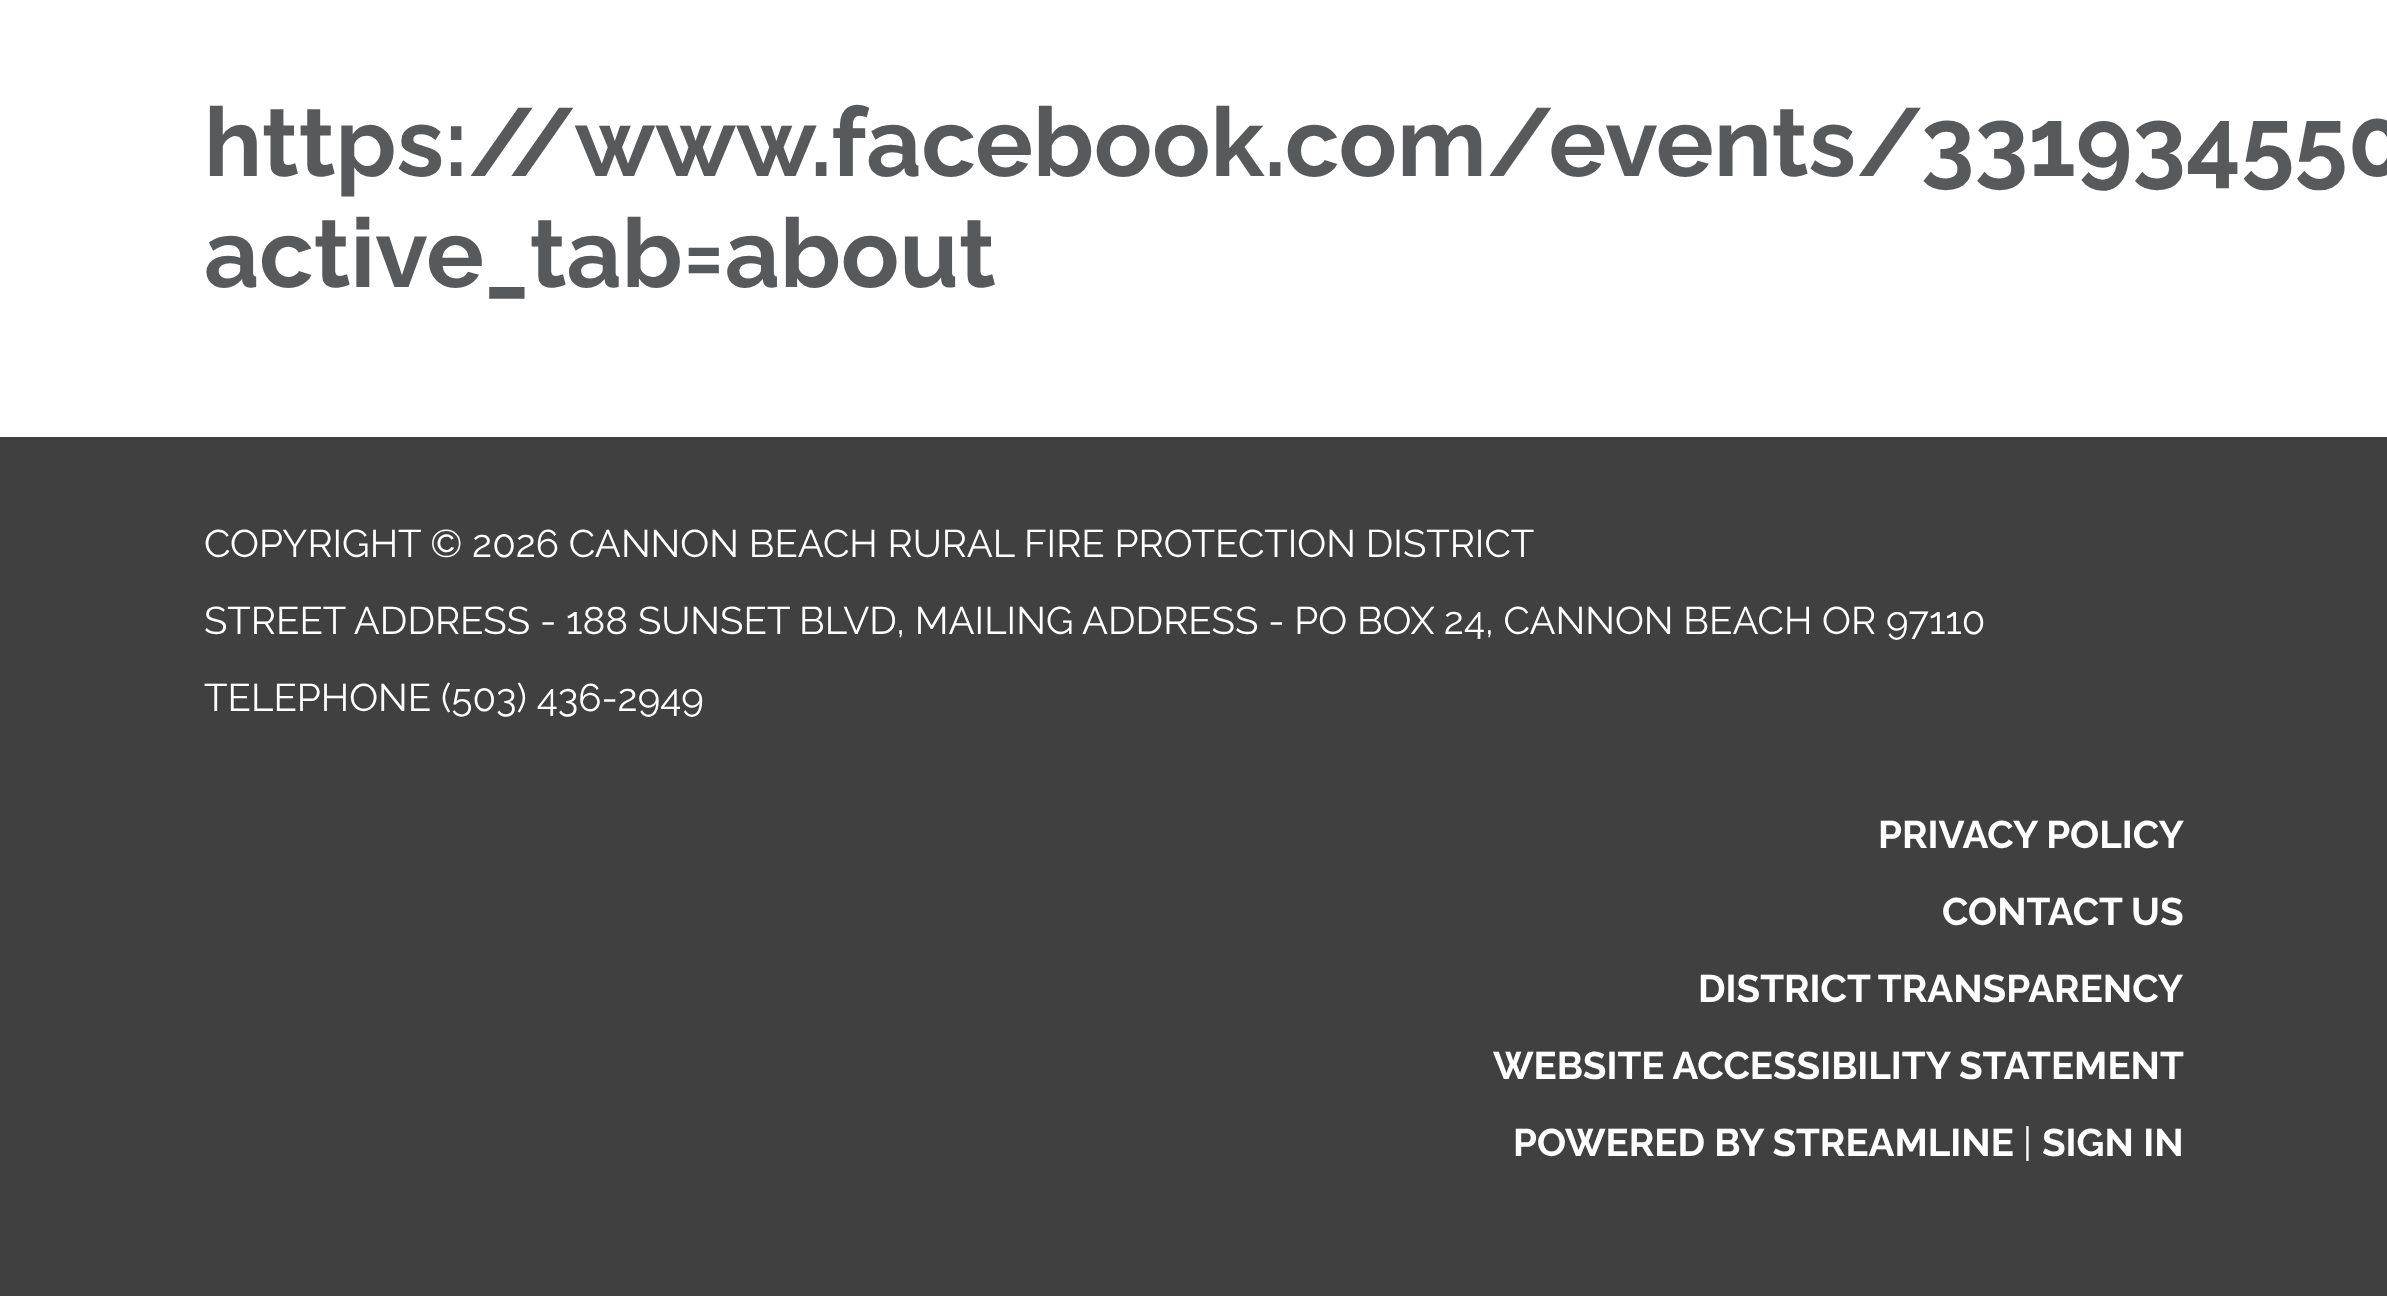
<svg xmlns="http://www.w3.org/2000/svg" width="2387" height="1296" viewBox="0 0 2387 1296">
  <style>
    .t1 { font: bold 96.25px Raleway; fill: #58595b; }
    .t2 { font: 38.5px Raleway; fill: #fff; }
    .t3 { font: bold 38.5px Raleway; fill: #fff; }
  </style>
  <rect width="100%" height="100%" fill="#404041"/>
  <rect x="0" y="0" width="2387" height="437" fill="#fff"/>
  <text x="204" y="176" class="t1">https://www.facebook.com/events/331934550</text>
  <text x="204" y="287" class="t1">active_tab=about</text>
  <text x="204" y="557" class="t2">COPYRIGHT © 2026 CANNON BEACH RURAL FIRE PROTECTION DISTRICT</text>
  <text x="204" y="634" class="t2">STREET ADDRESS - 188 SUNSET BLVD, MAILING ADDRESS - PO BOX 24, CANNON BEACH OR 97110</text>
  <text x="204" y="711" class="t2">TELEPHONE (503) 436-2949</text>
  <text x="1878" y="848" class="t3">PRIVACY POLICY</text>
  <text x="1942" y="925" class="t3">CONTACT US</text>
  <text x="1698" y="1002" class="t3">DISTRICT TRANSPARENCY</text>
  <text x="1493" y="1079" class="t3">WEBSITE ACCESSIBILITY STATEMENT</text>
  <text x="1513" y="1156" class="t3">POWERED BY STREAMLINE</text>
  <text x="2023" y="1156" class="t2">|</text>
  <text x="2042" y="1156" class="t3">SIGN IN</text>
</svg>
